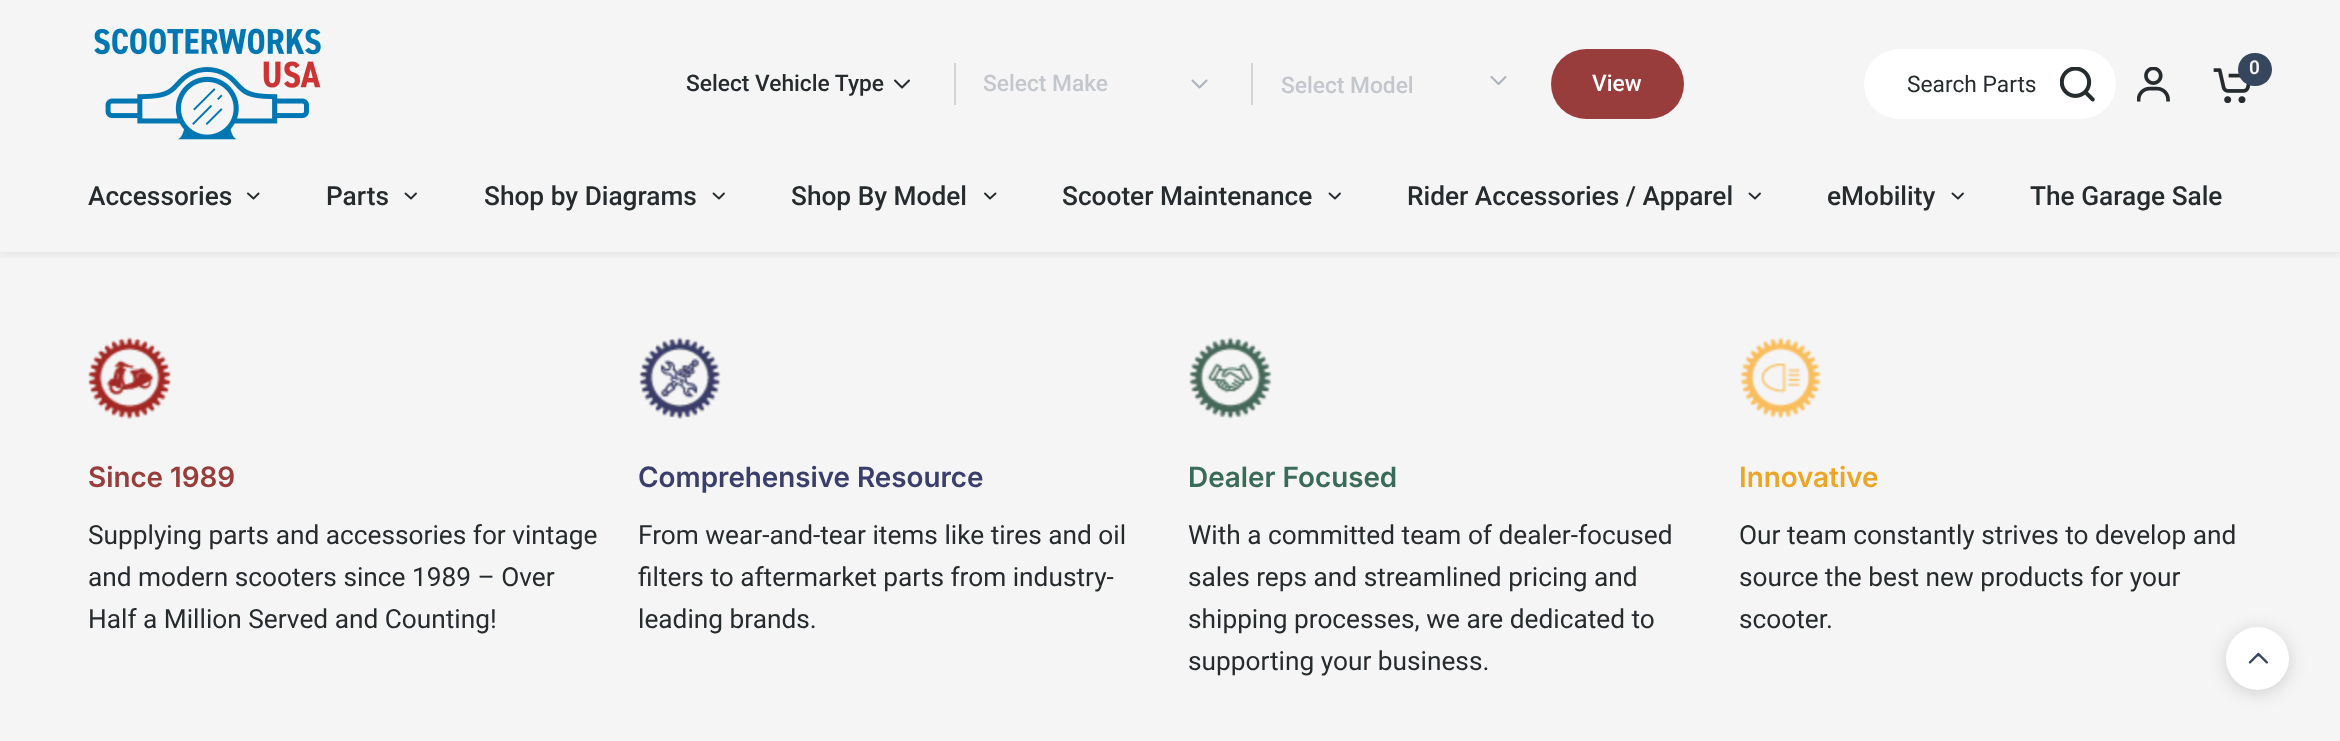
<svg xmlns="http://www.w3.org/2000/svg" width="2340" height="741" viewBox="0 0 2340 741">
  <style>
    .t1 { font: 500 22.75px Roboto; fill: #262b2e; }
    .t2 { font: 500 22.75px Roboto; fill: #c3c7cc; }
    .t3 { font: 500 22.75px Roboto; fill: #fff; }
    .t4 { font: 22.75px Roboto; fill: #262b2e; }
    .t5 { font: 600 19px Roboto; fill: #f5f5f5; }
    .t6 { font: 500 26.25px Roboto; fill: #262b2e; }
    .t7 { font: 600 28px Inter; fill: #983d3c; }
    .t8 { font: 26.25px Roboto; fill: #262b2e; }
    .t9 { font: 600 28px Inter; fill: #3a3e6b; }
    .t10 { font: 600 28px Inter; fill: #3a6a58; }
    .t11 { font: 600 28px Inter; fill: #eba627; }
  </style>
  <defs>
    <clipPath id="clip1"><rect x="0" y="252" width="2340" height="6"/></clipPath>
  </defs>
  <rect width="100%" height="100%" fill="#f5f5f5"/>
  <g clip-path="url(#clip1)">
    <rect x="0" y="4" width="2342" height="252" fill="#0000000f" filter="blur(4.5px)"/>
  </g>
  <image x="94" y="28" width="227" height="112" href="images/1.png"/>
  <rect x="954" y="63" width="2" height="42" fill="#d3d3d3"/>
  <text x="686" y="91" class="t1">Select Vehicle Type</text>
  <path d="M895 80.5L902 87.5L909 80.5" fill="none" stroke="#262b2e" stroke-width="2.1" stroke-linecap="round" stroke-linejoin="round"/>
  <rect x="1251" y="63" width="2" height="42" fill="#d3d3d3"/>
  <text x="983" y="91" class="t2">Select Make</text>
  <path d="M1192.5 80.5L1199.5 87.5L1206.5 80.5" fill="none" stroke="#adb3bb" stroke-width="2.1" stroke-linecap="round" stroke-linejoin="round"/>
  <text x="1281" y="93" class="t2">Select Model</text>
  <path d="M1491.5 77L1498.5 84L1505.5 77" fill="none" stroke="#adb3bb" stroke-width="2.1" stroke-linecap="round" stroke-linejoin="round"/>
  <rect x="1551" y="49" width="133" height="70" rx="35" fill="#983d3c"/>
  <text x="1592" y="91" class="t3">View</text>
  <rect x="1864" y="49" width="252" height="70" rx="35" fill="#fff"/>
  <text x="1907" y="92" class="t4">Search Parts</text>
  <image x="2060" y="67" width="35" height="35" href="images/2.png"/>
  <image x="2137" y="67" width="33" height="35" href="images/3.png"/>
  <image x="2213" y="68" width="38" height="35" href="images/4.png"/>
  <rect x="2238" y="53" width="34" height="33" rx="16.5" fill="#36465d"/>
  <text x="2249" y="74" class="t5">0</text>
  <text x="88" y="205" class="t6">Accessories</text>
  <path d="M258.5 193.5L253.5 198.5L248 193.5" fill="none" stroke="#262b2e" stroke-width="1.9" stroke-linecap="round" stroke-linejoin="round"/>
  <text x="326" y="205" class="t6">Parts</text>
  <path d="M416 193.5L411 198.5L405.5 193.5" fill="none" stroke="#262b2e" stroke-width="1.9" stroke-linecap="round" stroke-linejoin="round"/>
  <text x="484" y="205" class="t6">Shop by Diagrams</text>
  <path d="M724 193.5L719 198.5L713.5 193.5" fill="none" stroke="#262b2e" stroke-width="1.9" stroke-linecap="round" stroke-linejoin="round"/>
  <text x="791" y="205" class="t6">Shop By Model</text>
  <path d="M995.5 193.5L990 198.5L985 193.5" fill="none" stroke="#262b2e" stroke-width="1.9" stroke-linecap="round" stroke-linejoin="round"/>
  <text x="1062" y="205" class="t6">Scooter Maintenance</text>
  <path d="M1340 193.5L1335 198.5L1329.5 193.5" fill="none" stroke="#262b2e" stroke-width="1.9" stroke-linecap="round" stroke-linejoin="round"/>
  <text x="1407" y="205" class="t6">Rider Accessories / Apparel</text>
  <path d="M1760 193.5L1755 198.5L1749.5 193.5" fill="none" stroke="#262b2e" stroke-width="1.9" stroke-linecap="round" stroke-linejoin="round"/>
  <text x="1827" y="205" class="t6">eMobility</text>
  <path d="M1963 193.5L1958 198.5L1952.5 193.5" fill="none" stroke="#262b2e" stroke-width="1.9" stroke-linecap="round" stroke-linejoin="round"/>
  <text x="2030" y="205" class="t6">The Garage Sale</text>
  <image x="88" y="337" width="83" height="83" href="images/5.png"/>
  <text x="88" y="487" class="t7">Since 1989</text>
  <text x="88" y="544" class="t8">Supplying parts and accessories for vintage</text>
  <text x="88" y="586" class="t8">and modern scooters since 1989 – Over</text>
  <text x="88" y="628" class="t8">Half a Million Served and Counting!</text>
  <image x="639" y="337" width="82" height="83" href="images/6.png"/>
  <text x="638" y="487" class="t9">Comprehensive Resource</text>
  <text x="638" y="544" class="t8">From wear-and-tear items like tires and oil</text>
  <text x="638" y="586" class="t8">filters to aftermarket parts from industry-</text>
  <text x="638" y="628" class="t8">leading brands.</text>
  <image x="1189" y="337" width="83" height="82" href="images/7.png"/>
  <text x="1188" y="487" class="t10">Dealer Focused</text>
  <text x="1188" y="544" class="t8">With a committed team of dealer-focused</text>
  <text x="1188" y="586" class="t8">sales reps and streamlined pricing and</text>
  <text x="1188" y="628" class="t8">shipping processes, we are dedicated to</text>
  <text x="1188" y="670" class="t8">supporting your business.</text>
  <image x="1740" y="337" width="81" height="82" href="images/8.png"/>
  <text x="1739" y="487" class="t11">Innovative</text>
  <text x="1739" y="544" class="t8">Our team constantly strives to develop and</text>
  <text x="1739" y="586" class="t8">source the best new products for your</text>
  <text x="1739" y="628" class="t8">scooter.</text>
  <rect x="2226" y="630" width="63" height="63" rx="31.5" fill="#00000026" filter="blur(9px)"/>
  <circle cx="2257.5" cy="658.5" r="31.5" fill="#fff"/>
  <image x="2248" y="652" width="20" height="12" href="images/9.png"/>
</svg>
